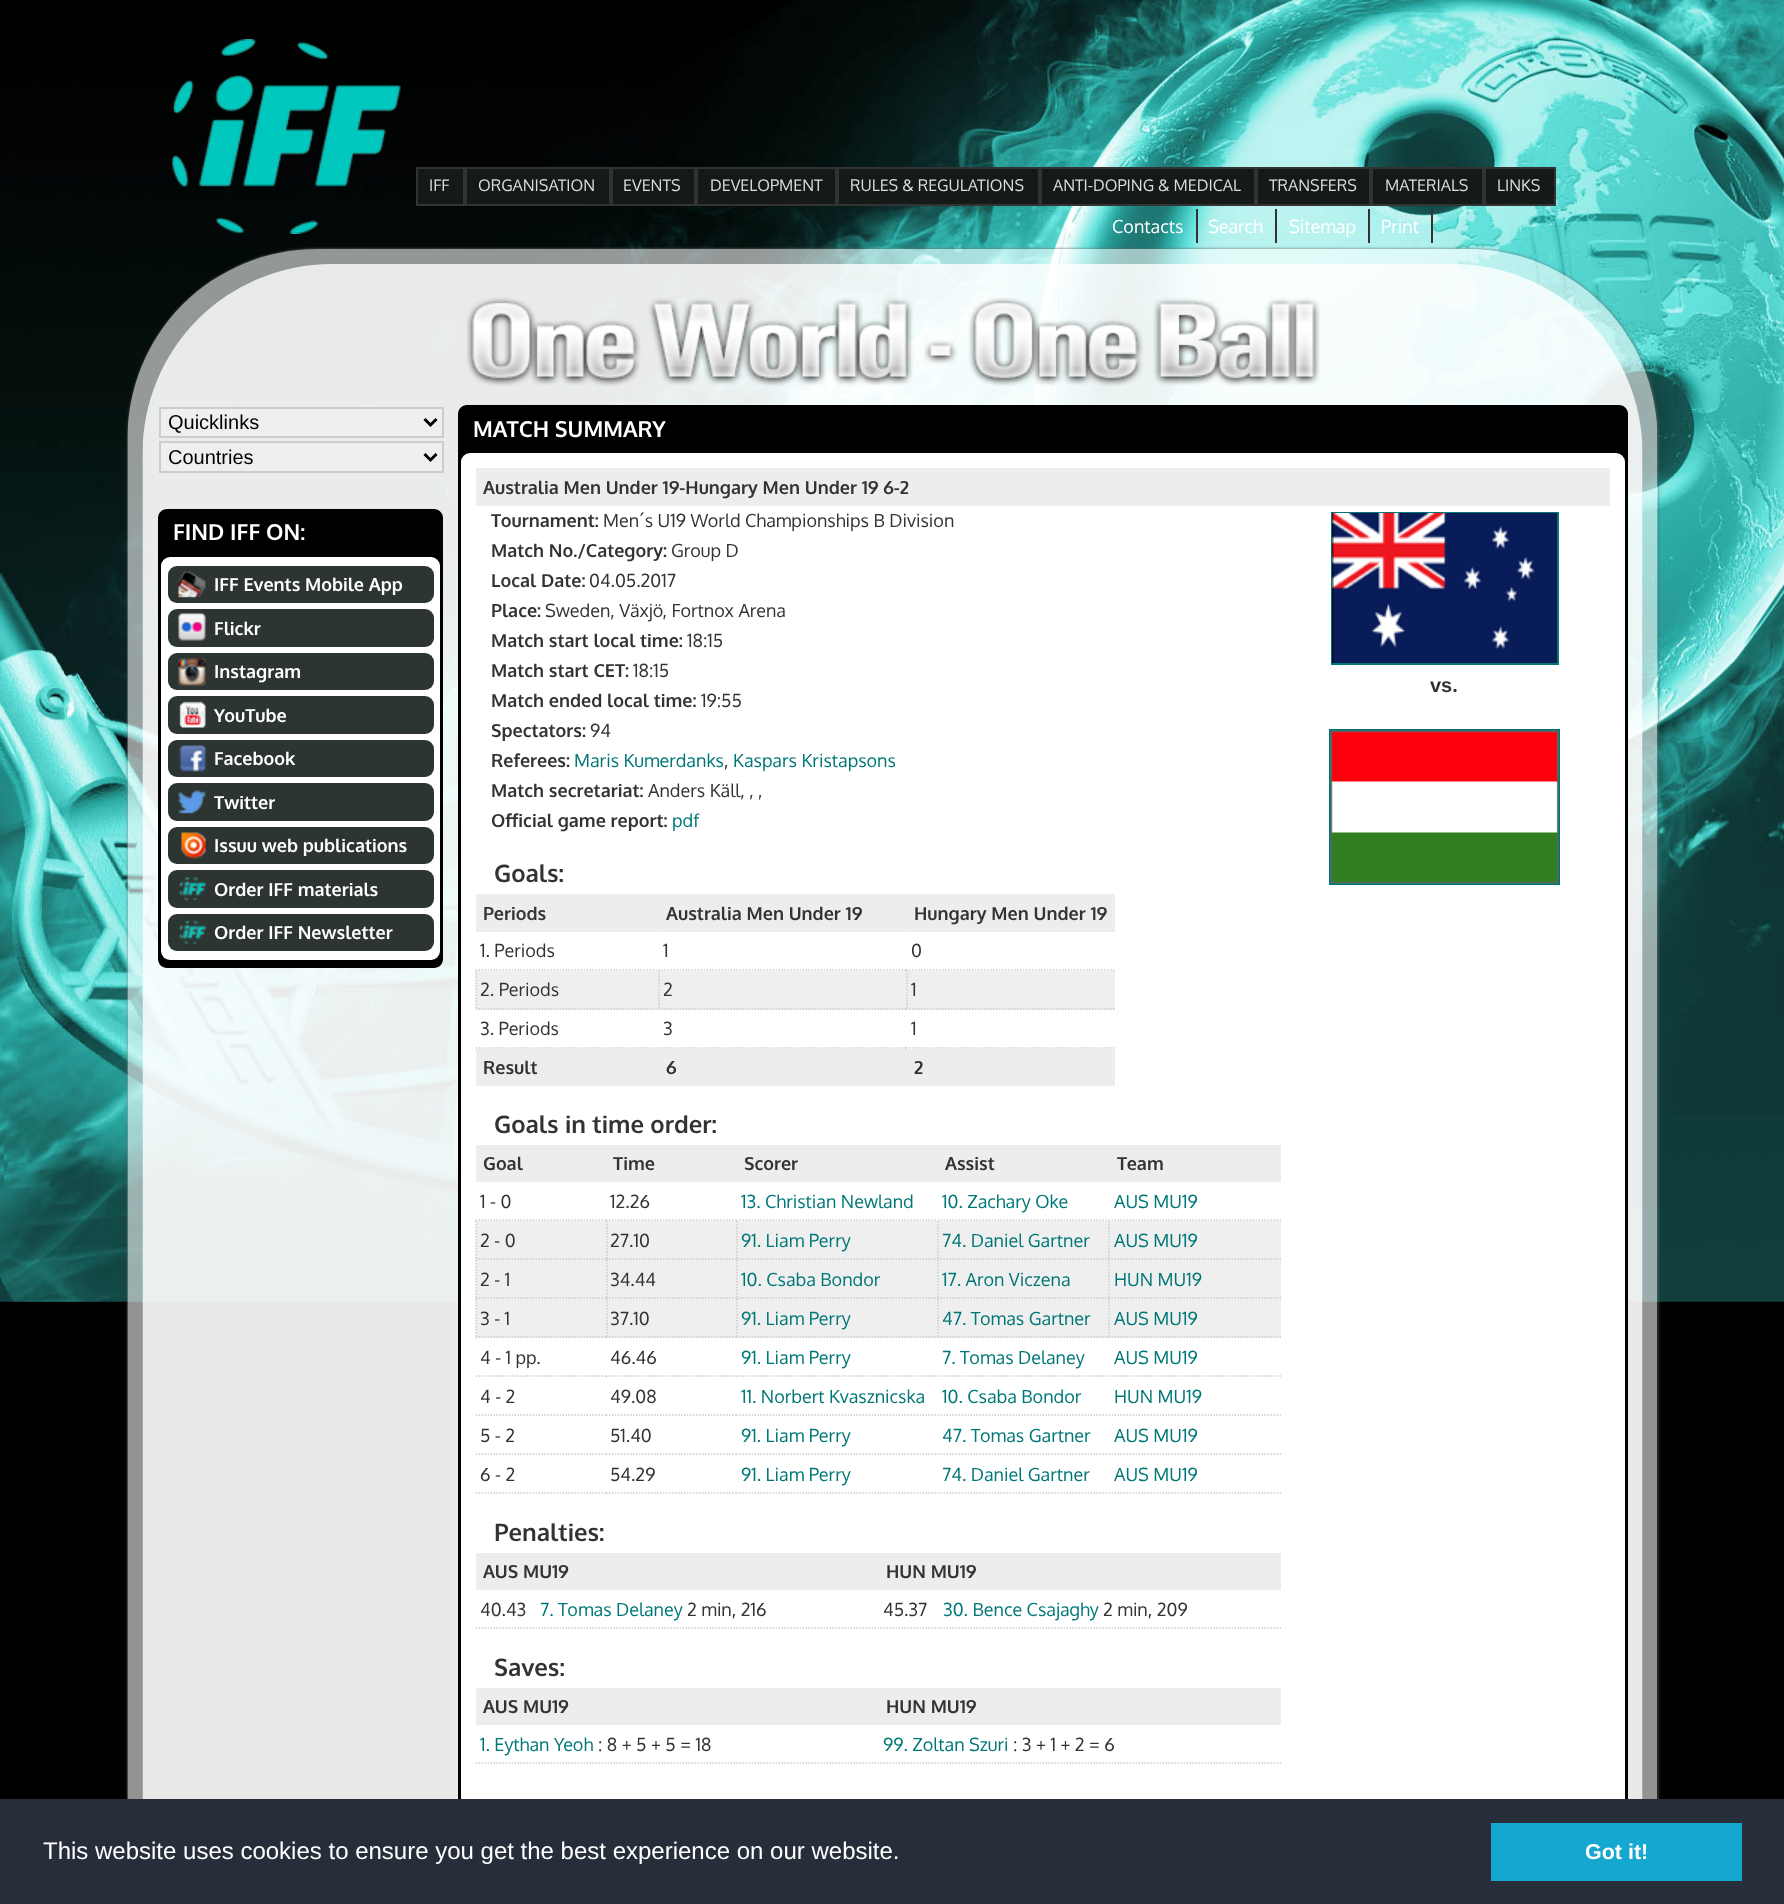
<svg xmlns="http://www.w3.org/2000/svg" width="1784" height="1904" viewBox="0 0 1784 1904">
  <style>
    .t1 { font: 16px Oxygen; fill: #ddd; }
    .t2 { font: 18px Oxygen; fill: #fff; }
    .t3 { font: 20px Liberation Sans; fill: #000; }
    .t4 { font: bold 22px Oxygen; fill: #fff; }
    .t5 { font: bold 18px Oxygen; fill: #fff; }
    .t6 { font: bold 18px Oxygen; fill: #333; }
    .t7 { font: 18px Oxygen; fill: #333; }
    .t8 { font: 18px Oxygen; fill: #077; }
    .t9 { font: bold 24px Oxygen; fill: #333; }
    .t10 { font: bold 20px Liberation Sans; fill: #333; }
    .t11 { font: 24px Liberation Sans; fill: #fff; }
    .t12 { font: bold 21.5px Liberation Sans; fill: #fff; }
  </style>
  <defs>
    <clipPath id="clip1"><path d="M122 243H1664V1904H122ZM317 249H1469C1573.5 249 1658 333.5 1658 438V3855C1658 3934.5 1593.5 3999 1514 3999H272C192.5 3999 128 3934.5 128 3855V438C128 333.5 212.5 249 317 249Z" clip-rule="evenodd"/></clipPath>
  </defs>
  <rect width="100%" height="100%" fill="#000"/>
  <image x="0" y="0" width="1784" height="1302" href="images/1.png"/>
  <image x="172" y="39" width="229" height="195" href="images/2.png"/>
  <rect x="417" y="168" width="47" height="37" fill="#151a18" stroke="#333" stroke-width="2"/>
  <text x="429" y="191" class="t1">IFF</text>
  <rect x="466" y="168" width="144" height="37" fill="#151a18" stroke="#333" stroke-width="2"/>
  <text x="478" y="191" class="t1">ORGANISATION</text>
  <rect x="612" y="168" width="83" height="37" fill="#151a18" stroke="#333" stroke-width="2"/>
  <text x="623" y="191" class="t1">EVENTS</text>
  <rect x="697" y="168" width="139" height="37" fill="#151a18" stroke="#333" stroke-width="2"/>
  <text x="710" y="191" class="t1">DEVELOPMENT</text>
  <rect x="838" y="168" width="201" height="37" fill="#151a18" stroke="#333" stroke-width="2"/>
  <text x="850" y="191" class="t1">RULES &amp; REGULATIONS</text>
  <rect x="1041" y="168" width="214" height="37" fill="#151a18" stroke="#333" stroke-width="2"/>
  <text x="1053" y="191" class="t1">ANTI-DOPING &amp; MEDICAL</text>
  <rect x="1257" y="168" width="113" height="37" fill="#151a18" stroke="#333" stroke-width="2"/>
  <text x="1269" y="191" class="t1">TRANSFERS</text>
  <rect x="1372" y="168" width="111" height="37" fill="#151a18" stroke="#333" stroke-width="2"/>
  <text x="1385" y="191" class="t1">MATERIALS</text>
  <rect x="1485" y="168" width="70" height="37" fill="#151a18" stroke="#333" stroke-width="2"/>
  <text x="1497" y="191" class="t1">LINKS</text>
  <text x="1112" y="233" class="t2">Contacts</text>
  <rect x="1196" y="209" width="2" height="34" fill="#333"/>
  <text x="1208" y="233" class="t2">Search</text>
  <rect x="1275" y="209" width="2" height="34" fill="#333"/>
  <text x="1289" y="233" class="t2">Sitemap</text>
  <rect x="1368" y="209" width="2" height="34" fill="#333"/>
  <text x="1381" y="233" class="t2">Print</text>
  <rect x="1431" y="209" width="2" height="34" fill="#333"/>
  <g clip-path="url(#clip1)">
    <rect x="128" y="249" width="1530" height="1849" rx="189" fill="#666" filter="blur(1.5px)"/>
  </g>
  <image x="127" y="249" width="1531" height="1550" href="images/3.png"/>
  <image x="142" y="264" width="1501" height="1535" href="images/4.png"/>
  <image x="466" y="297" width="854" height="89" href="images/5.png"/>
  <rect x="160" y="408" width="283" height="29" fill="#efefef" stroke="#ccc" stroke-width="2"/>
  <path d="M424.5 419L430.5 425L436.5 419" fill="none" stroke="#000" stroke-width="3"/>
  <text x="168" y="429" class="t3">Quicklinks</text>
  <rect x="160" y="442" width="283" height="30" fill="#efefef" stroke="#ccc" stroke-width="2"/>
  <path d="M424.5 454L430.5 460L436.5 454" fill="none" stroke="#000" stroke-width="3"/>
  <text x="168" y="464" class="t3">Countries</text>
  <path d="M167 509H434C439 509 443 513 443 518V554H158V518C158 513 162 509 167 509Z" fill="#000"/>
  <text x="173" y="540" class="t4">FIND IFF ON:</text>
  <path d="M158 554H443V959C443 964 439 968 434 968H167C162 968 158 964 158 959Z" fill="#000"/>
  <rect x="161" y="557" width="279" height="403" rx="9" fill="#fff"/>
  <rect x="168" y="566" width="266" height="37" rx="9" fill="#2d3532"/>
  <image x="178" y="571" width="28" height="27" href="images/6.png"/>
  <text x="214" y="591" class="t5">IFF Events Mobile App</text>
  <rect x="168" y="609" width="266" height="38" rx="9" fill="#2d3532"/>
  <image x="178" y="613" width="28" height="28" href="images/7.png"/>
  <text x="214" y="635" class="t5">Flickr</text>
  <rect x="168" y="653" width="266" height="37" rx="9" fill="#2d3532"/>
  <image x="178" y="658" width="28" height="28" href="images/8.png"/>
  <text x="214" y="678" class="t5">Instagram</text>
  <rect x="168" y="696" width="266" height="38" rx="9" fill="#2d3532"/>
  <image x="179" y="701" width="27" height="27" href="images/9.png"/>
  <text x="214" y="722" class="t5">YouTube</text>
  <rect x="168" y="740" width="266" height="37" rx="9" fill="#2d3532"/>
  <image x="179" y="745" width="27" height="27" href="images/10.png"/>
  <text x="214" y="765" class="t5">Facebook</text>
  <rect x="168" y="783" width="266" height="38" rx="9" fill="#2d3532"/>
  <image x="178" y="790" width="28" height="24" href="images/11.png"/>
  <text x="214" y="809" class="t5">Twitter</text>
  <rect x="168" y="827" width="266" height="37" rx="9" fill="#2d3532"/>
  <image x="181" y="832" width="25" height="27" href="images/12.png"/>
  <text x="214" y="852" class="t5">Issuu web publications</text>
  <rect x="168" y="870" width="266" height="38" rx="9" fill="#2d3532"/>
  <image x="179" y="877" width="27" height="24" href="images/13.png"/>
  <text x="214" y="896" class="t5">Order IFF materials</text>
  <rect x="168" y="914" width="266" height="37" rx="9" fill="#2d3532"/>
  <image x="179" y="920" width="27" height="24" href="images/14.png"/>
  <text x="214" y="939" class="t5">Order IFF Newsletter</text>
  <path d="M467 405H1619C1624 405 1628 409 1628 414V450H458V414C458 409 462 405 467 405Z" fill="#000"/>
  <text x="473" y="437" class="t4">MATCH SUMMARY</text>
  <rect x="458" y="450" width="1170" height="1349" fill="#000"/>
  <rect x="461" y="453" width="1164" height="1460" rx="9" fill="#fff"/>
  <rect x="476" y="468" width="1134" height="38" fill="#ededed"/>
  <text x="483" y="494" class="t6">Australia Men Under 19-Hungary Men Under 19 6-2</text>
  <text x="491" y="527" class="t6">Tournament:</text>
  <text x="603" y="527" class="t7">Men´s U19 World Championships B Division</text>
  <text x="491" y="557" class="t6">Match No./Category:</text>
  <text x="671" y="557" class="t7">Group D</text>
  <text x="491" y="587" class="t6">Local Date:</text>
  <text x="589" y="587" class="t7">04.05.2017</text>
  <text x="491" y="617" class="t6">Place:</text>
  <text x="545" y="617" class="t7">Sweden, Växjö, Fortnox Arena</text>
  <text x="491" y="647" class="t6">Match start local time:</text>
  <text x="687" y="647" class="t7">18:15</text>
  <text x="491" y="677" class="t6">Match start CET:</text>
  <text x="633" y="677" class="t7">18:15</text>
  <text x="491" y="707" class="t6">Match ended local time:</text>
  <text x="701" y="707" class="t7">19:55</text>
  <text x="491" y="737" class="t6">Spectators:</text>
  <text x="590" y="737" class="t7">94</text>
  <text x="491" y="767" class="t6">Referees:</text>
  <text x="574" y="767" class="t8">Maris Kumerdanks</text>
  <text x="724" y="767" class="t7">,</text>
  <text x="733" y="767" class="t8">Kaspars Kristapsons</text>
  <text x="491" y="797" class="t6">Match secretariat:</text>
  <text x="648" y="797" class="t7">Anders Käll, , ,</text>
  <text x="491" y="827" class="t6">Official game report:</text>
  <text x="672" y="827" class="t8">pdf</text>
  <text x="494" y="882" class="t9">Goals:</text>
  <rect x="476" y="894" width="639" height="38" fill="#ededed"/>
  <text x="483" y="920" class="t6">Periods</text>
  <text x="666" y="920" class="t6">Australia Men Under 19</text>
  <text x="914" y="920" class="t6">Hungary Men Under 19</text>
  <path d="M475.5 970H658.5" fill="none" stroke="#ccc" stroke-width="1.5" stroke-dasharray="1.5 1.5"/>
  <path d="M476 931.5V970.5" fill="none" stroke="#fff" stroke-width="1.5" stroke-dasharray="1.5 1.5"/>
  <text x="480" y="957" class="t7">1. Periods</text>
  <path d="M658.5 970H906" fill="none" stroke="#ccc" stroke-width="1.5" stroke-dasharray="1.5 1.5"/>
  <path d="M659 931.5V970.5" fill="none" stroke="#fff" stroke-width="1.5" stroke-dasharray="1.5 1.5"/>
  <text x="663" y="957" class="t7">1</text>
  <path d="M906 970H1114.5" fill="none" stroke="#ccc" stroke-width="1.5" stroke-dasharray="1.5 1.5"/>
  <path d="M907 931.5V970.5" fill="none" stroke="#fff" stroke-width="1.5" stroke-dasharray="1.5 1.5"/>
  <text x="911" y="957" class="t7">0</text>
  <rect x="476" y="971" width="639" height="39" fill="#efefef"/>
  <path d="M475.5 1009H658.5" fill="none" stroke="#ccc" stroke-width="1.5" stroke-dasharray="1.5 1.5"/>
  <path d="M476 970.5V1009.5" fill="none" stroke="#ccc" stroke-width="1.5" stroke-dasharray="1.5 1.5"/>
  <text x="480" y="996" class="t7">2. Periods</text>
  <path d="M658.5 1009H906" fill="none" stroke="#ccc" stroke-width="1.5" stroke-dasharray="1.5 1.5"/>
  <path d="M659 970.5V1009.5" fill="none" stroke="#ccc" stroke-width="1.5" stroke-dasharray="1.5 1.5"/>
  <text x="663" y="996" class="t7">2</text>
  <path d="M906 1009H1114.5" fill="none" stroke="#ccc" stroke-width="1.5" stroke-dasharray="1.5 1.5"/>
  <path d="M907 970.5V1009.5" fill="none" stroke="#ccc" stroke-width="1.5" stroke-dasharray="1.5 1.5"/>
  <text x="911" y="996" class="t7">1</text>
  <path d="M475.5 1048H658.5" fill="none" stroke="#ccc" stroke-width="1.5" stroke-dasharray="1.5 1.5"/>
  <path d="M476 1009.5V1048.5" fill="none" stroke="#fff" stroke-width="1.5" stroke-dasharray="1.5 1.5"/>
  <text x="480" y="1035" class="t7">3. Periods</text>
  <path d="M658.5 1048H906" fill="none" stroke="#ccc" stroke-width="1.5" stroke-dasharray="1.5 1.5"/>
  <path d="M659 1009.5V1048.5" fill="none" stroke="#fff" stroke-width="1.5" stroke-dasharray="1.5 1.5"/>
  <text x="663" y="1035" class="t7">3</text>
  <path d="M906 1048H1114.5" fill="none" stroke="#ccc" stroke-width="1.5" stroke-dasharray="1.5 1.5"/>
  <path d="M907 1009.5V1048.5" fill="none" stroke="#fff" stroke-width="1.5" stroke-dasharray="1.5 1.5"/>
  <text x="911" y="1035" class="t7">1</text>
  <rect x="476" y="1049" width="639" height="37" fill="#ededed"/>
  <text x="483" y="1074" class="t6">Result</text>
  <text x="666" y="1074" class="t6">6</text>
  <text x="914" y="1074" class="t6">2</text>
  <text x="494" y="1133" class="t9">Goals in time order:</text>
  <rect x="476" y="1145" width="805" height="37" fill="#ededed"/>
  <text x="483" y="1170" class="t6">Goal</text>
  <text x="613" y="1170" class="t6">Time</text>
  <text x="744" y="1170" class="t6">Scorer</text>
  <text x="945" y="1170" class="t6">Assist</text>
  <text x="1117" y="1170" class="t6">Team</text>
  <path d="M475.5 1220H606" fill="none" stroke="#ccc" stroke-width="1.5" stroke-dasharray="1.5 1.5"/>
  <path d="M476 1182V1221" fill="none" stroke="#fff" stroke-width="1.5" stroke-dasharray="1.5 1.5"/>
  <text x="480" y="1208" class="t7">1 - 0</text>
  <path d="M606 1220H736.5" fill="none" stroke="#ccc" stroke-width="1.5" stroke-dasharray="1.5 1.5"/>
  <path d="M607 1182V1221" fill="none" stroke="#fff" stroke-width="1.5" stroke-dasharray="1.5 1.5"/>
  <text x="610" y="1208" class="t7">12.26</text>
  <path d="M736.5 1220H937.5" fill="none" stroke="#ccc" stroke-width="1.5" stroke-dasharray="1.5 1.5"/>
  <path d="M737 1182V1221" fill="none" stroke="#fff" stroke-width="1.5" stroke-dasharray="1.5 1.5"/>
  <text x="741" y="1208" class="t8">13. Christian Newland</text>
  <path d="M937.5 1220H1108.5" fill="none" stroke="#ccc" stroke-width="1.5" stroke-dasharray="1.5 1.5"/>
  <path d="M938 1182V1221" fill="none" stroke="#fff" stroke-width="1.5" stroke-dasharray="1.5 1.5"/>
  <text x="942" y="1208" class="t8">10. Zachary Oke</text>
  <path d="M1108.5 1220H1281" fill="none" stroke="#ccc" stroke-width="1.5" stroke-dasharray="1.5 1.5"/>
  <path d="M1109 1182V1221" fill="none" stroke="#fff" stroke-width="1.5" stroke-dasharray="1.5 1.5"/>
  <text x="1114" y="1208" class="t8">AUS MU19</text>
  <rect x="476" y="1221" width="805" height="39" fill="#efefef"/>
  <path d="M475.5 1259H606" fill="none" stroke="#ccc" stroke-width="1.5" stroke-dasharray="1.5 1.5"/>
  <path d="M476 1221V1260" fill="none" stroke="#ccc" stroke-width="1.5" stroke-dasharray="1.5 1.5"/>
  <text x="480" y="1247" class="t7">2 - 0</text>
  <path d="M606 1259H736.5" fill="none" stroke="#ccc" stroke-width="1.5" stroke-dasharray="1.5 1.5"/>
  <path d="M607 1221V1260" fill="none" stroke="#ccc" stroke-width="1.5" stroke-dasharray="1.5 1.5"/>
  <text x="610" y="1247" class="t7">27.10</text>
  <path d="M736.5 1259H937.5" fill="none" stroke="#ccc" stroke-width="1.5" stroke-dasharray="1.5 1.5"/>
  <path d="M737 1221V1260" fill="none" stroke="#ccc" stroke-width="1.5" stroke-dasharray="1.5 1.5"/>
  <text x="741" y="1247" class="t8">91. Liam Perry</text>
  <path d="M937.5 1259H1108.5" fill="none" stroke="#ccc" stroke-width="1.5" stroke-dasharray="1.5 1.5"/>
  <path d="M938 1221V1260" fill="none" stroke="#ccc" stroke-width="1.5" stroke-dasharray="1.5 1.5"/>
  <text x="942" y="1247" class="t8">74. Daniel Gartner</text>
  <path d="M1108.5 1259H1281" fill="none" stroke="#ccc" stroke-width="1.5" stroke-dasharray="1.5 1.5"/>
  <path d="M1109 1221V1260" fill="none" stroke="#ccc" stroke-width="1.5" stroke-dasharray="1.5 1.5"/>
  <text x="1114" y="1247" class="t8">AUS MU19</text>
  <rect x="476" y="1260" width="805" height="39" fill="#efefef"/>
  <path d="M475.5 1298H606" fill="none" stroke="#ccc" stroke-width="1.5" stroke-dasharray="1.5 1.5"/>
  <path d="M476 1260V1299" fill="none" stroke="#ccc" stroke-width="1.5" stroke-dasharray="1.5 1.5"/>
  <text x="480" y="1286" class="t7">2 - 1</text>
  <path d="M606 1298H736.5" fill="none" stroke="#ccc" stroke-width="1.5" stroke-dasharray="1.5 1.5"/>
  <path d="M607 1260V1299" fill="none" stroke="#ccc" stroke-width="1.5" stroke-dasharray="1.5 1.5"/>
  <text x="610" y="1286" class="t7">34.44</text>
  <path d="M736.5 1298H937.5" fill="none" stroke="#ccc" stroke-width="1.5" stroke-dasharray="1.5 1.5"/>
  <path d="M737 1260V1299" fill="none" stroke="#ccc" stroke-width="1.5" stroke-dasharray="1.5 1.5"/>
  <text x="741" y="1286" class="t8">10. Csaba Bondor</text>
  <path d="M937.5 1298H1108.5" fill="none" stroke="#ccc" stroke-width="1.5" stroke-dasharray="1.5 1.5"/>
  <path d="M938 1260V1299" fill="none" stroke="#ccc" stroke-width="1.5" stroke-dasharray="1.5 1.5"/>
  <text x="942" y="1286" class="t8">17. Aron Viczena</text>
  <path d="M1108.5 1298H1281" fill="none" stroke="#ccc" stroke-width="1.5" stroke-dasharray="1.5 1.5"/>
  <path d="M1109 1260V1299" fill="none" stroke="#ccc" stroke-width="1.5" stroke-dasharray="1.5 1.5"/>
  <text x="1114" y="1286" class="t8">HUN MU19</text>
  <rect x="476" y="1299" width="805" height="39" fill="#efefef"/>
  <path d="M475.5 1337H606" fill="none" stroke="#ccc" stroke-width="1.5" stroke-dasharray="1.5 1.5"/>
  <path d="M476 1299V1338" fill="none" stroke="#ccc" stroke-width="1.5" stroke-dasharray="1.5 1.5"/>
  <text x="480" y="1325" class="t7">3 - 1</text>
  <path d="M606 1337H736.5" fill="none" stroke="#ccc" stroke-width="1.5" stroke-dasharray="1.5 1.5"/>
  <path d="M607 1299V1338" fill="none" stroke="#ccc" stroke-width="1.5" stroke-dasharray="1.5 1.5"/>
  <text x="610" y="1325" class="t7">37.10</text>
  <path d="M736.5 1337H937.5" fill="none" stroke="#ccc" stroke-width="1.5" stroke-dasharray="1.5 1.5"/>
  <path d="M737 1299V1338" fill="none" stroke="#ccc" stroke-width="1.5" stroke-dasharray="1.5 1.5"/>
  <text x="741" y="1325" class="t8">91. Liam Perry</text>
  <path d="M937.5 1337H1108.5" fill="none" stroke="#ccc" stroke-width="1.5" stroke-dasharray="1.5 1.5"/>
  <path d="M938 1299V1338" fill="none" stroke="#ccc" stroke-width="1.5" stroke-dasharray="1.5 1.5"/>
  <text x="942" y="1325" class="t8">47. Tomas Gartner</text>
  <path d="M1108.5 1337H1281" fill="none" stroke="#ccc" stroke-width="1.5" stroke-dasharray="1.5 1.5"/>
  <path d="M1109 1299V1338" fill="none" stroke="#ccc" stroke-width="1.5" stroke-dasharray="1.5 1.5"/>
  <text x="1114" y="1325" class="t8">AUS MU19</text>
  <path d="M475.5 1376H606" fill="none" stroke="#ccc" stroke-width="1.5" stroke-dasharray="1.5 1.5"/>
  <path d="M476 1338V1377" fill="none" stroke="#fff" stroke-width="1.5" stroke-dasharray="1.5 1.5"/>
  <text x="480" y="1364" class="t7">4 - 1 pp.</text>
  <path d="M606 1376H736.5" fill="none" stroke="#ccc" stroke-width="1.5" stroke-dasharray="1.5 1.5"/>
  <path d="M607 1338V1377" fill="none" stroke="#fff" stroke-width="1.5" stroke-dasharray="1.5 1.5"/>
  <text x="610" y="1364" class="t7">46.46</text>
  <path d="M736.5 1376H937.5" fill="none" stroke="#ccc" stroke-width="1.5" stroke-dasharray="1.5 1.5"/>
  <path d="M737 1338V1377" fill="none" stroke="#fff" stroke-width="1.5" stroke-dasharray="1.5 1.5"/>
  <text x="741" y="1364" class="t8">91. Liam Perry</text>
  <path d="M937.5 1376H1108.5" fill="none" stroke="#ccc" stroke-width="1.5" stroke-dasharray="1.5 1.5"/>
  <path d="M938 1338V1377" fill="none" stroke="#fff" stroke-width="1.5" stroke-dasharray="1.5 1.5"/>
  <text x="942" y="1364" class="t8">7. Tomas Delaney</text>
  <path d="M1108.5 1376H1281" fill="none" stroke="#ccc" stroke-width="1.5" stroke-dasharray="1.5 1.5"/>
  <path d="M1109 1338V1377" fill="none" stroke="#fff" stroke-width="1.5" stroke-dasharray="1.5 1.5"/>
  <text x="1114" y="1364" class="t8">AUS MU19</text>
  <path d="M475.5 1415H606" fill="none" stroke="#ccc" stroke-width="1.5" stroke-dasharray="1.5 1.5"/>
  <path d="M476 1377V1416" fill="none" stroke="#fff" stroke-width="1.5" stroke-dasharray="1.5 1.5"/>
  <text x="480" y="1403" class="t7">4 - 2</text>
  <path d="M606 1415H736.5" fill="none" stroke="#ccc" stroke-width="1.5" stroke-dasharray="1.5 1.5"/>
  <path d="M607 1377V1416" fill="none" stroke="#fff" stroke-width="1.5" stroke-dasharray="1.5 1.5"/>
  <text x="610" y="1403" class="t7">49.08</text>
  <path d="M736.5 1415H937.5" fill="none" stroke="#ccc" stroke-width="1.5" stroke-dasharray="1.5 1.5"/>
  <path d="M737 1377V1416" fill="none" stroke="#fff" stroke-width="1.5" stroke-dasharray="1.5 1.5"/>
  <text x="741" y="1403" class="t8">11. Norbert Kvasznicska</text>
  <path d="M937.5 1415H1108.5" fill="none" stroke="#ccc" stroke-width="1.5" stroke-dasharray="1.5 1.5"/>
  <path d="M938 1377V1416" fill="none" stroke="#fff" stroke-width="1.5" stroke-dasharray="1.5 1.5"/>
  <text x="942" y="1403" class="t8">10. Csaba Bondor</text>
  <path d="M1108.5 1415H1281" fill="none" stroke="#ccc" stroke-width="1.5" stroke-dasharray="1.5 1.5"/>
  <path d="M1109 1377V1416" fill="none" stroke="#fff" stroke-width="1.5" stroke-dasharray="1.5 1.5"/>
  <text x="1114" y="1403" class="t8">HUN MU19</text>
  <path d="M475.5 1454H606" fill="none" stroke="#ccc" stroke-width="1.5" stroke-dasharray="1.5 1.5"/>
  <path d="M476 1416V1455" fill="none" stroke="#fff" stroke-width="1.5" stroke-dasharray="1.5 1.5"/>
  <text x="480" y="1442" class="t7">5 - 2</text>
  <path d="M606 1454H736.5" fill="none" stroke="#ccc" stroke-width="1.5" stroke-dasharray="1.5 1.5"/>
  <path d="M607 1416V1455" fill="none" stroke="#fff" stroke-width="1.5" stroke-dasharray="1.5 1.5"/>
  <text x="610" y="1442" class="t7">51.40</text>
  <path d="M736.5 1454H937.5" fill="none" stroke="#ccc" stroke-width="1.5" stroke-dasharray="1.5 1.5"/>
  <path d="M737 1416V1455" fill="none" stroke="#fff" stroke-width="1.5" stroke-dasharray="1.5 1.5"/>
  <text x="741" y="1442" class="t8">91. Liam Perry</text>
  <path d="M937.5 1454H1108.5" fill="none" stroke="#ccc" stroke-width="1.5" stroke-dasharray="1.5 1.5"/>
  <path d="M938 1416V1455" fill="none" stroke="#fff" stroke-width="1.5" stroke-dasharray="1.5 1.5"/>
  <text x="942" y="1442" class="t8">47. Tomas Gartner</text>
  <path d="M1108.5 1454H1281" fill="none" stroke="#ccc" stroke-width="1.5" stroke-dasharray="1.5 1.5"/>
  <path d="M1109 1416V1455" fill="none" stroke="#fff" stroke-width="1.5" stroke-dasharray="1.5 1.5"/>
  <text x="1114" y="1442" class="t8">AUS MU19</text>
  <path d="M475.5 1493H606" fill="none" stroke="#ccc" stroke-width="1.5" stroke-dasharray="1.5 1.5"/>
  <path d="M476 1455V1494" fill="none" stroke="#fff" stroke-width="1.5" stroke-dasharray="1.5 1.5"/>
  <text x="480" y="1481" class="t7">6 - 2</text>
  <path d="M606 1493H736.5" fill="none" stroke="#ccc" stroke-width="1.5" stroke-dasharray="1.5 1.5"/>
  <path d="M607 1455V1494" fill="none" stroke="#fff" stroke-width="1.5" stroke-dasharray="1.5 1.5"/>
  <text x="610" y="1481" class="t7">54.29</text>
  <path d="M736.5 1493H937.5" fill="none" stroke="#ccc" stroke-width="1.5" stroke-dasharray="1.5 1.5"/>
  <path d="M737 1455V1494" fill="none" stroke="#fff" stroke-width="1.5" stroke-dasharray="1.5 1.5"/>
  <text x="741" y="1481" class="t8">91. Liam Perry</text>
  <path d="M937.5 1493H1108.5" fill="none" stroke="#ccc" stroke-width="1.5" stroke-dasharray="1.5 1.5"/>
  <path d="M938 1455V1494" fill="none" stroke="#fff" stroke-width="1.5" stroke-dasharray="1.5 1.5"/>
  <text x="942" y="1481" class="t8">74. Daniel Gartner</text>
  <path d="M1108.5 1493H1281" fill="none" stroke="#ccc" stroke-width="1.5" stroke-dasharray="1.5 1.5"/>
  <path d="M1109 1455V1494" fill="none" stroke="#fff" stroke-width="1.5" stroke-dasharray="1.5 1.5"/>
  <text x="1114" y="1481" class="t8">AUS MU19</text>
  <text x="494" y="1541" class="t9">Penalties:</text>
  <rect x="476" y="1553" width="805" height="37" fill="#ededed"/>
  <text x="483" y="1578" class="t6">AUS MU19</text>
  <path d="M475.5 1628H535.5" fill="none" stroke="#ccc" stroke-width="1.5" stroke-dasharray="1.5 1.5"/>
  <path d="M476 1590V1629" fill="none" stroke="#fff" stroke-width="1.5" stroke-dasharray="1.5 1.5"/>
  <text x="480" y="1616" class="t7">40.43</text>
  <path d="M535.5 1628H877.5" fill="none" stroke="#ccc" stroke-width="1.5" stroke-dasharray="1.5 1.5"/>
  <path d="M536 1590V1629" fill="none" stroke="#fff" stroke-width="1.5" stroke-dasharray="1.5 1.5"/>
  <text x="540" y="1616" class="t8">7. Tomas Delaney</text>
  <text x="687" y="1616" class="t7">2 min, 216</text>
  <text x="886" y="1578" class="t6">HUN MU19</text>
  <path d="M877.5 1628H937.5" fill="none" stroke="#ccc" stroke-width="1.5" stroke-dasharray="1.5 1.5"/>
  <path d="M878 1590V1629" fill="none" stroke="#fff" stroke-width="1.5" stroke-dasharray="1.5 1.5"/>
  <text x="883" y="1616" class="t7">45.37</text>
  <path d="M937.5 1628H1281" fill="none" stroke="#ccc" stroke-width="1.5" stroke-dasharray="1.5 1.5"/>
  <path d="M938 1590V1629" fill="none" stroke="#fff" stroke-width="1.5" stroke-dasharray="1.5 1.5"/>
  <text x="943" y="1616" class="t8">30. Bence Csajaghy</text>
  <text x="1103" y="1616" class="t7">2 min, 209</text>
  <text x="494" y="1676" class="t9">Saves:</text>
  <rect x="476" y="1688" width="805" height="37" fill="#ededed"/>
  <text x="483" y="1713" class="t6">AUS MU19</text>
  <path d="M475.5 1763H877.5" fill="none" stroke="#ccc" stroke-width="1.5" stroke-dasharray="1.5 1.5"/>
  <path d="M476 1725V1764" fill="none" stroke="#fff" stroke-width="1.5" stroke-dasharray="1.5 1.5"/>
  <text x="480" y="1751" class="t8">1. Eythan Yeoh</text>
  <text x="598" y="1751" class="t7">: 8 + 5 + 5 = 18</text>
  <text x="886" y="1713" class="t6">HUN MU19</text>
  <path d="M877.5 1763H1281" fill="none" stroke="#ccc" stroke-width="1.5" stroke-dasharray="1.5 1.5"/>
  <path d="M878 1725V1764" fill="none" stroke="#fff" stroke-width="1.5" stroke-dasharray="1.5 1.5"/>
  <text x="883" y="1751" class="t8">99. Zoltan Szuri</text>
  <text x="1013" y="1751" class="t7">: 3 + 1 + 2 = 6</text>
  <rect x="1332" y="513" width="226" height="151" fill="none" stroke="#077" stroke-width="2"/>
  <image x="1332" y="513" width="225" height="150" href="images/15.png"/>
  <text x="1430" y="692" class="t10">vs.</text>
  <rect x="1330" y="730" width="229" height="154" fill="none" stroke="#077" stroke-width="2"/>
  <image x="1330" y="730" width="229" height="154" href="images/16.png"/>
  <rect x="0" y="1799" width="1784" height="105" fill="#252e39"/>
  <text x="43" y="1859" class="t11">This website uses cookies to ensure you get the best experience on our website.</text>
  <rect x="1491" y="1823" width="251" height="58" fill="#14a7d0"/>
  <text x="1585" y="1859" class="t12">Got it!</text>
</svg>
